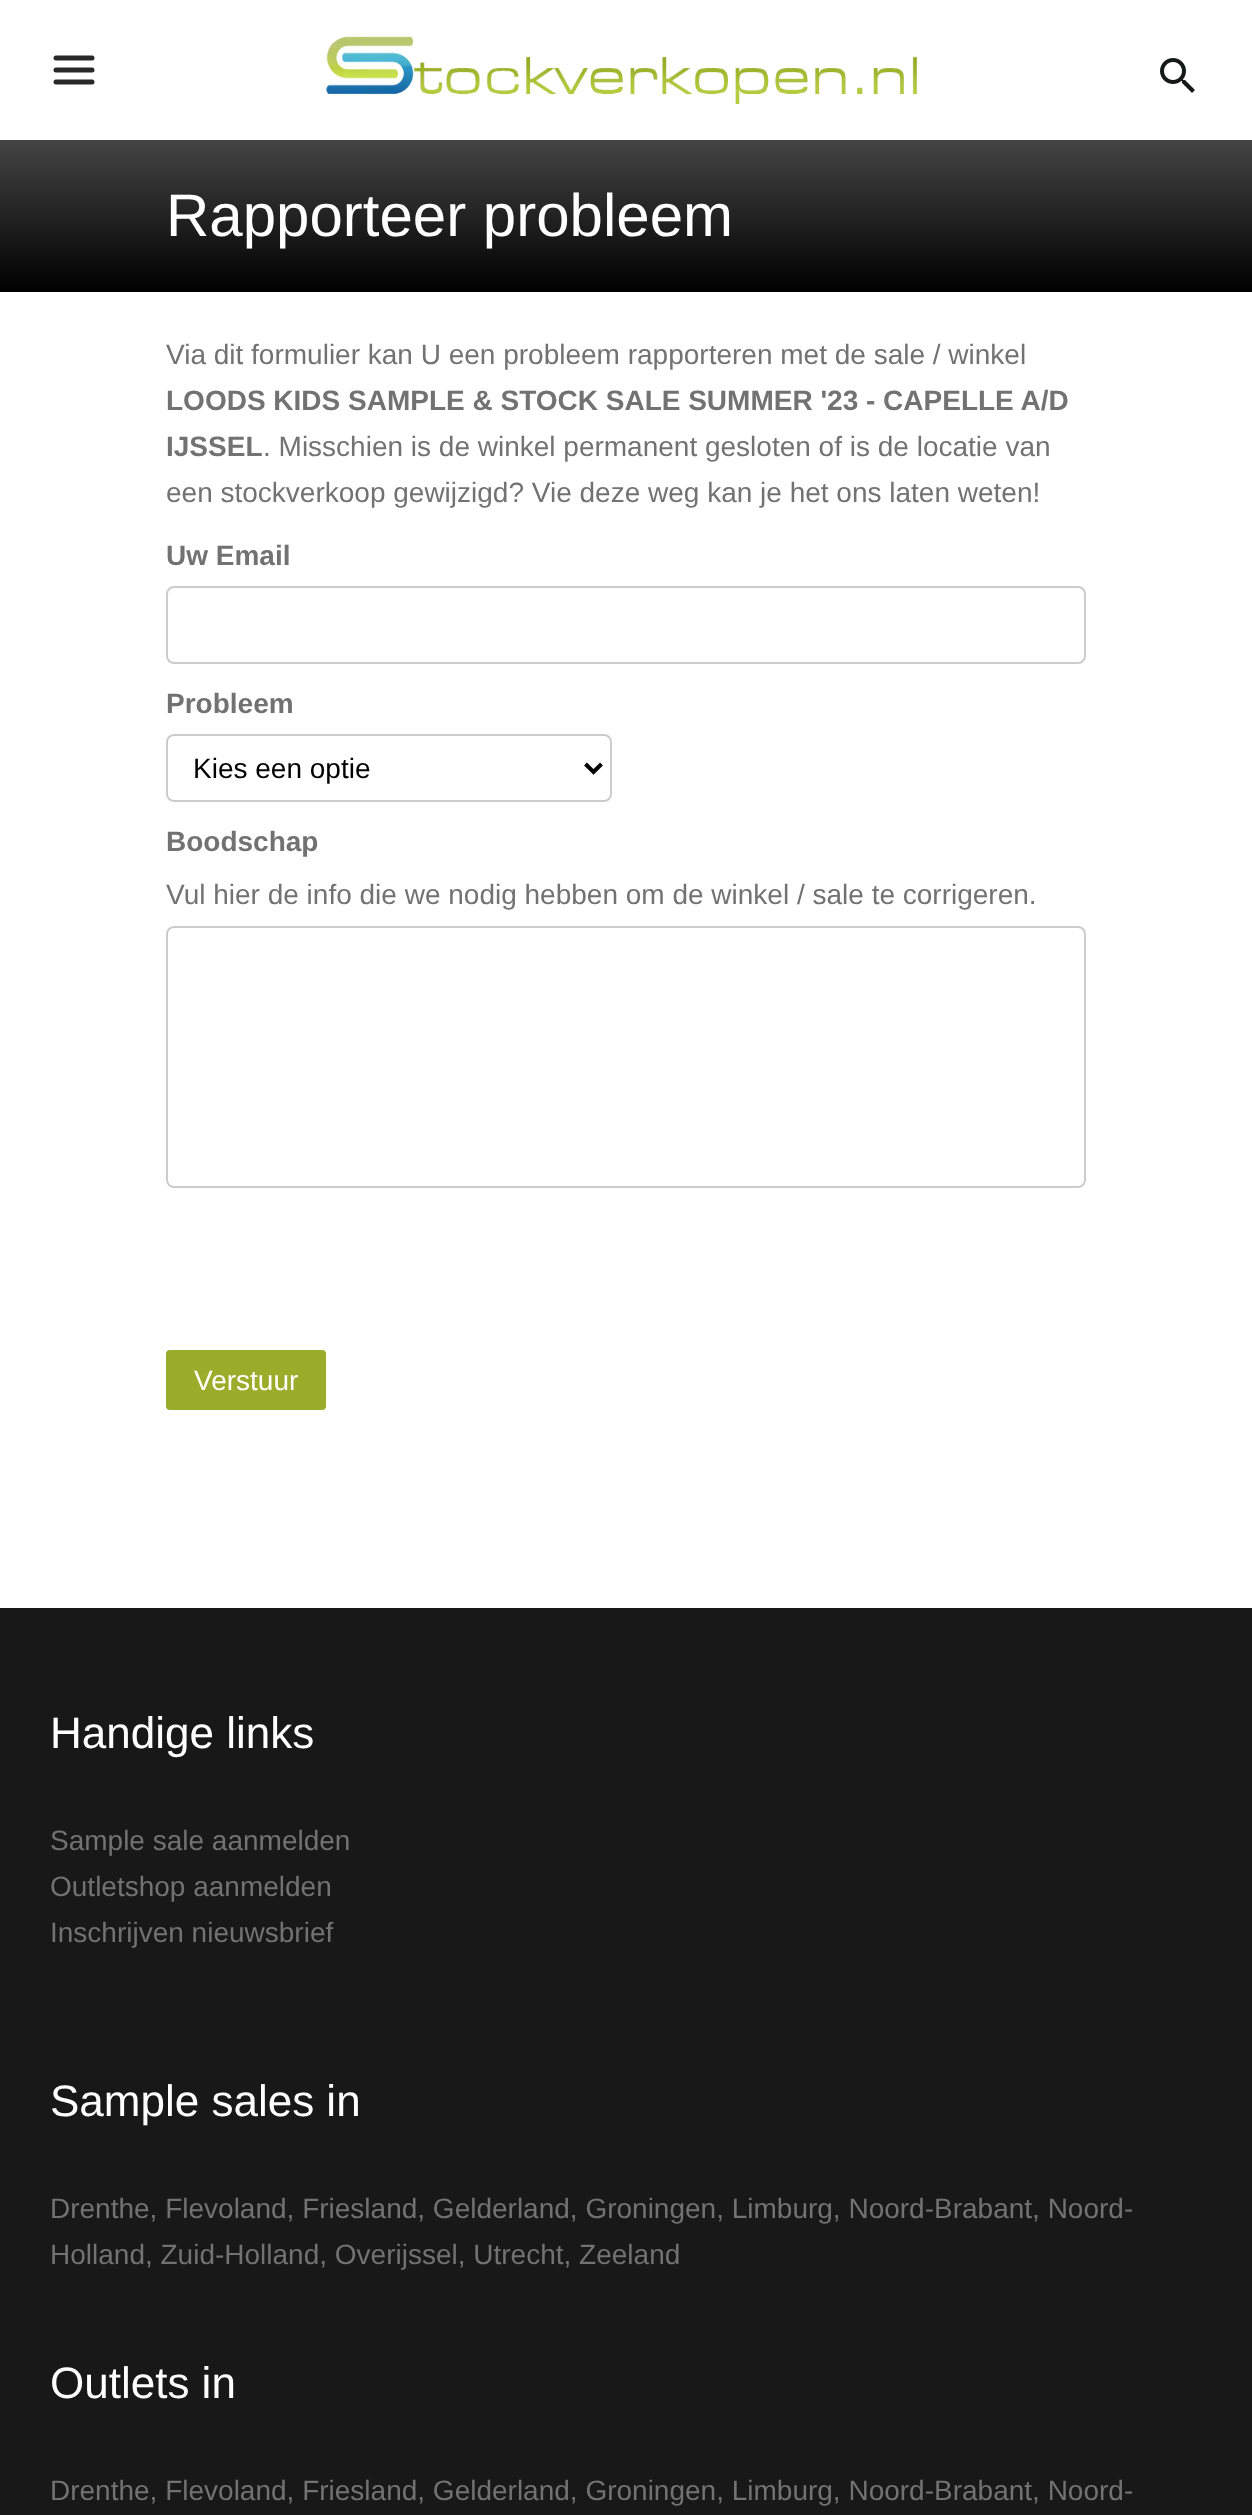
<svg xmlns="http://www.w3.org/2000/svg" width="1252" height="2515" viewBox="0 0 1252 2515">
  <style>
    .t1 { font: 60px Liberation Sans; fill: #fff; }
    .t2 { font: 28px Liberation Sans; fill: #727272; }
    .t3 { font: bold 28px Liberation Sans; fill: #727272; }
    .t4 { font: 28px Liberation Sans; fill: #000; }
    .t5 { font: 28px Liberation Sans; fill: #fff; }
    .t6 { font: 44px Liberation Sans; fill: #fff; }
  </style>
  <defs>
    <linearGradient id="g1" gradientUnits="userSpaceOnUse" x1="626" y1="292" x2="626" y2="140"><stop offset="0" stop-color="#000"/><stop offset="1" stop-color="#444"/></linearGradient>
  </defs>
  <rect width="100%" height="100%" fill="#fff"/>
  <path d="M56 58H92M56 70H92M56 82H92" fill="none" stroke="#292929" stroke-width="5" stroke-linecap="round" stroke-linejoin="round"/>
  <image x="326" y="36" width="592" height="68" href="images/1.png"/>
  <image x="1160" y="58" width="35" height="35" href="images/2.png"/>
  <rect x="0" y="140" width="1252" height="152" fill="url(#g1)"/>
  <text x="166" y="236" class="t1">Rapporteer probleem</text>
  <text x="166" y="364" class="t2">Via dit formulier kan U een probleem rapporteren met de sale / winkel</text>
  <text x="166" y="410" class="t3">LOODS KIDS SAMPLE &amp; STOCK SALE SUMMER '23 - CAPELLE A/D</text>
  <text x="166" y="456" class="t3">IJSSEL</text>
  <text x="263" y="456" class="t2">. Misschien is de winkel permanent gesloten of is de locatie van</text>
  <text x="166" y="502" class="t2">een stockverkoop gewijzigd? Vie deze weg kan je het ons laten weten!</text>
  <text x="166" y="565" class="t3">Uw Email</text>
  <rect x="167" y="587" width="918" height="76" rx="7" fill="none" stroke="#ccc" stroke-width="2"/>
  <text x="166" y="713" class="t3">Probleem</text>
  <rect x="167" y="735" width="444" height="66" rx="7" fill="none" stroke="#ccc" stroke-width="2"/>
  <path d="M585.5 764L593.5 772L601.5 764" fill="none" stroke="#000" stroke-width="4"/>
  <text x="193" y="778" class="t4">Kies een optie</text>
  <text x="166" y="851" class="t3">Boodschap</text>
  <text x="166" y="904" class="t2">Vul hier de info die we nodig hebben om de winkel / sale te corrigeren.</text>
  <rect x="167" y="927" width="918" height="260" rx="7" fill="none" stroke="#ccc" stroke-width="2"/>
  <rect x="166" y="1350" width="160" height="60" rx="4" fill="#99ad2a"/>
  <text x="194" y="1390" class="t5">Verstuur</text>
  <rect x="0" y="1608" width="1252" height="907" fill="#181818"/>
  <text x="50" y="1748" class="t6">Handige links</text>
  <text x="50" y="1850" class="t2">Sample sale aanmelden</text>
  <text x="50" y="1896" class="t2">Outletshop aanmelden</text>
  <text x="50" y="1942" class="t2">Inschrijven nieuwsbrief</text>
  <text x="50" y="2116" class="t6">Sample sales in</text>
  <text x="50" y="2218" class="t2">Drenthe, Flevoland, Friesland, Gelderland, Groningen, Limburg, Noord-Brabant, Noord-</text>
  <text x="50" y="2264" class="t2">Holland, Zuid-Holland, Overijssel, Utrecht, Zeeland</text>
  <text x="50" y="2398" class="t6">Outlets in</text>
  <text x="50" y="2500" class="t2">Drenthe, Flevoland, Friesland, Gelderland, Groningen, Limburg, Noord-Brabant, Noord-</text>
</svg>
